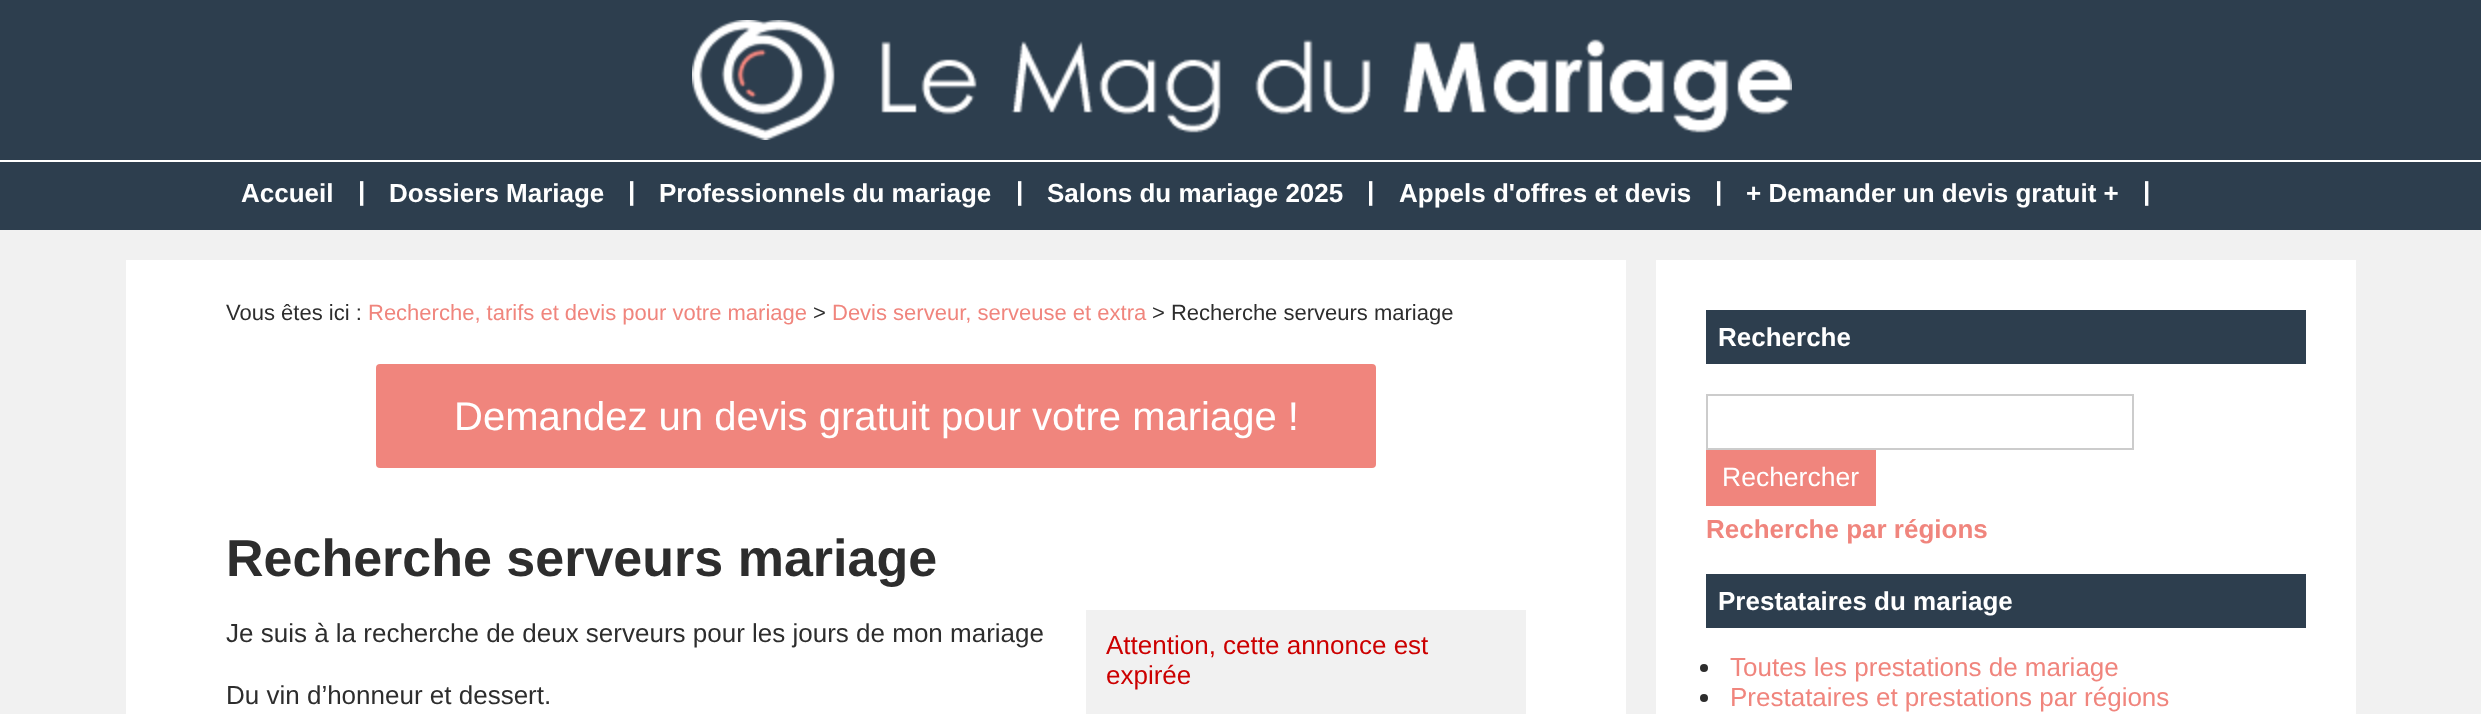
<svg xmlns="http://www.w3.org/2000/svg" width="2481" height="714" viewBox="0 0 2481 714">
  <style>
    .t1 { font: bold 26px Liberation Sans; fill: #fff; }
    .t2 { font: 22px Liberation Sans; fill: #2d2d2d; }
    .t3 { font: 22px Liberation Sans; fill: #f0857d; }
    .t4 { font: 40px Liberation Sans; fill: #fff; }
    .t5 { font: bold 52px Liberation Sans; fill: #2d2d2d; }
    .t6 { font: 26px Liberation Sans; fill: #2d2d2d; }
    .t7 { font: 26px Liberation Sans; fill: #c00; }
    .t8 { font: 26.5px Liberation Sans; fill: #fff; }
    .t9 { font: bold 26px Liberation Sans; fill: #f0857d; }
    .t10 { font: 26px Liberation Sans; fill: #f0857d; }
  </style>
  <rect width="100%" height="100%" fill="#f1f1f1"/>
  <rect x="0" y="0" width="2481" height="160" fill="#2d3e4e"/>
  <image x="692" y="20" width="1100" height="120" href="images/1.png"/>
  <rect x="0" y="162" width="2481" height="68" fill="#2d3e4e"/>
  <rect x="0" y="160" width="2481" height="2" fill="#fff"/>
  <text x="241" y="202" class="t1">Accueil</text>
  <text x="358" y="200" class="t1">|</text>
  <text x="389" y="202" class="t1">Dossiers Mariage</text>
  <text x="628" y="200" class="t1">|</text>
  <text x="659" y="202" class="t1">Professionnels du mariage</text>
  <text x="1016" y="200" class="t1">|</text>
  <text x="1047" y="202" class="t1">Salons du mariage 2025</text>
  <text x="1367" y="200" class="t1">|</text>
  <text x="1399" y="202" class="t1">Appels d'offres et devis</text>
  <text x="1715" y="200" class="t1">|</text>
  <text x="1746" y="202" class="t1">+ Demander un devis gratuit +</text>
  <text x="2143" y="200" class="t1">|</text>
  <rect x="126" y="260" width="1500" height="454" fill="#fff"/>
  <text x="226" y="320" class="t2">Vous êtes ici :</text>
  <text x="368" y="320" class="t3">Recherche, tarifs et devis pour votre mariage</text>
  <text x="813" y="320" class="t2">&gt;</text>
  <text x="832" y="320" class="t3">Devis serveur, serveuse et extra</text>
  <text x="1152" y="320" class="t2">&gt; Recherche serveurs mariage</text>
  <rect x="376" y="364" width="1000" height="104" rx="4" fill="#f0857d"/>
  <text x="454" y="430" class="t4">Demandez un devis gratuit pour votre mariage !</text>
  <text x="226" y="576" class="t5">Recherche serveurs mariage</text>
  <text x="226" y="642" class="t6">Je suis à la recherche de deux serveurs pour les jours de mon mariage</text>
  <text x="226" y="704" class="t6">Du vin d’honneur et dessert.</text>
  <rect x="1086" y="610" width="440" height="104" fill="#f1f1f1"/>
  <text x="1106" y="654" class="t7">Attention, cette annonce est</text>
  <text x="1106" y="684" class="t7">expirée</text>
  <rect x="1656" y="260" width="700" height="454" fill="#fff"/>
  <rect x="1706" y="310" width="600" height="54" fill="#2d3e4e"/>
  <text x="1718" y="346" class="t1">Recherche</text>
  <rect x="1707" y="395" width="426" height="54" fill="none" stroke="#ccc" stroke-width="2"/>
  <rect x="1706" y="450" width="170" height="56" fill="#f0857d"/>
  <text x="1722" y="486" class="t8">Rechercher</text>
  <text x="1706" y="538" class="t9">Recherche par régions</text>
  <rect x="1706" y="574" width="600" height="54" fill="#2d3e4e"/>
  <text x="1718" y="610" class="t1">Prestataires du mariage</text>
  <circle cx="1704" cy="668" r="4" fill="#2d2d2d"/>
  <text x="1730" y="676" class="t10">Toutes les prestations de mariage</text>
  <circle cx="1704" cy="698" r="4" fill="#2d2d2d"/>
  <text x="1730" y="706" class="t10">Prestataires et prestations par régions</text>
</svg>
